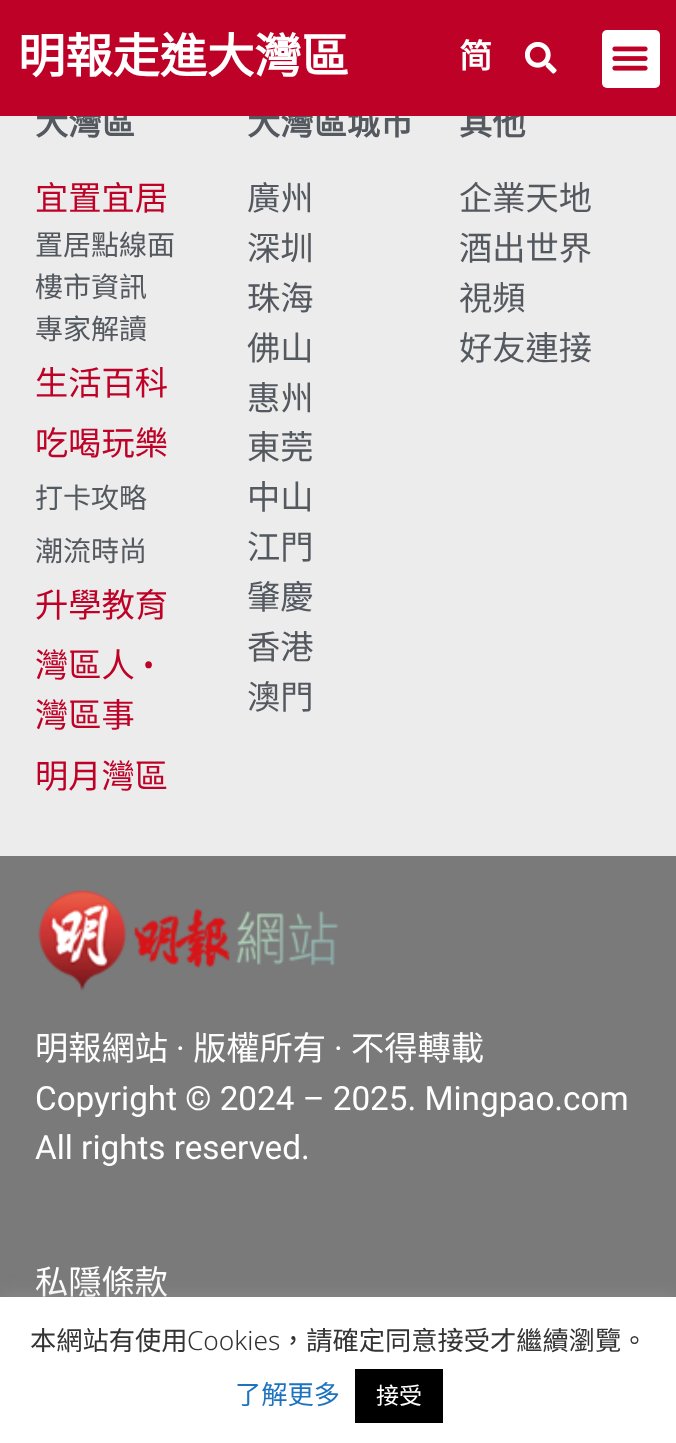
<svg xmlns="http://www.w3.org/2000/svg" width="676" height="1443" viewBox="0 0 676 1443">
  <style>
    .t1 { font: bold 33.25px Noto Sans CJK TC; fill: #54595f; }
    .t2 { font: bold 47.25px Noto Sans CJK TC; fill: #fff; }
    .t3 { font: bold 33.25px Noto Sans CJK TC; fill: #fff; }
    .t4 { font: 33.25px Noto Sans CJK TC; fill: #be0227; }
    .t5 { font: 28px Noto Sans CJK TC; fill: #54595f; }
    .t6 { font: 33.25px Roboto; fill: #be0227; }
    .t7 { font: 33.25px Noto Sans CJK TC; fill: #54595f; }
    .t8 { font: 33.25px Noto Sans CJK TC; fill: #fff; }
    .t9 { font: 33.25px Roboto; fill: #fff; }
    .t10 { font: 26.25px Noto Sans CJK TC; fill: #333; }
    .t11 { font: 300 26.25px Noto Sans; fill: #333; }
    .t12 { font: 26.25px Noto Sans CJK TC; fill: #1e73be; }
    .t13 { font: 23px Noto Sans CJK TC; fill: #fff; }
  </style>
  <rect width="100%" height="100%" fill="#ececec"/>
  <text x="35" y="135" class="t1">大灣區</text>
  <text x="247" y="135" class="t1">大灣區城市</text>
  <text x="459" y="135" class="t1">其他</text>
  <rect x="0" y="0" width="676" height="116" fill="#be0227"/>
  <text x="18" y="73" class="t2">明報走進大灣區</text>
  <text x="459" y="68" class="t3">简</text>
  <image x="525" y="42" width="32" height="32" href="images/1.png"/>
  <rect x="602" y="30" width="58" height="58" rx="5" fill="#fff"/>
  <image x="612" y="46" width="36" height="25" href="images/2.png"/>
  <text x="35" y="210" class="t4">宜置宜居</text>
  <text x="35" y="255" class="t5">置居點線面</text>
  <text x="35" y="297" class="t5">樓市資訊</text>
  <text x="35" y="339" class="t5">專家解讀</text>
  <text x="35" y="395" class="t4">生活百科</text>
  <text x="35" y="455" class="t4">吃喝玩樂</text>
  <text x="35" y="508" class="t5">打卡攻略</text>
  <text x="35" y="561" class="t5">潮流時尚</text>
  <text x="35" y="617" class="t4">升學教育</text>
  <text x="35" y="677" class="t4">灣區人</text>
  <text x="143" y="677" class="t6">•</text>
  <text x="35" y="727" class="t4">灣區事</text>
  <text x="35" y="788" class="t4">明月灣區</text>
  <text x="247" y="210" class="t7">廣州</text>
  <text x="247" y="260" class="t7">深圳</text>
  <text x="247" y="310" class="t7">珠海</text>
  <text x="247" y="360" class="t7">佛山</text>
  <text x="247" y="410" class="t7">惠州</text>
  <text x="247" y="459" class="t7">東莞</text>
  <text x="247" y="509" class="t7">中山</text>
  <text x="247" y="559" class="t7">江門</text>
  <text x="247" y="609" class="t7">肇慶</text>
  <text x="247" y="659" class="t7">香港</text>
  <text x="247" y="709" class="t7">澳門</text>
  <text x="459" y="210" class="t7">企業天地</text>
  <text x="459" y="260" class="t7">酒出世界</text>
  <text x="459" y="310" class="t7">視頻</text>
  <text x="459" y="360" class="t7">好友連接</text>
  <rect x="0" y="856" width="676" height="441" fill="#7a7a7a"/>
  <image x="38" y="890" width="300" height="101" href="images/3.png"/>
  <text x="35" y="1060" class="t8">明報網站</text>
  <text x="176" y="1060" class="t9">·</text>
  <text x="193" y="1060" class="t8">版權所有</text>
  <text x="334" y="1060" class="t9">·</text>
  <text x="351" y="1060" class="t8">不得轉載</text>
  <text x="35" y="1110" class="t9">Copyright © 2024 – 2025. Mingpao.com</text>
  <text x="35" y="1159" class="t9">All rights reserved.</text>
  <text x="35" y="1294" class="t8">私隱條款</text>
  <rect x="0" y="1295" width="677" height="147" fill="#acabab4d" filter="blur(9px)"/>
  <rect x="0" y="1297" width="676" height="146" fill="#fff"/>
  <text x="30" y="1350" class="t10">本網站有使用</text>
  <text x="187" y="1350" class="t11">Cookies</text>
  <text x="280" y="1350" class="t10">，請確定同意接受才繼續瀏覽。</text>
  <text x="235" y="1404" class="t12">了解更多</text>
  <rect x="355" y="1369" width="88" height="54" fill="#000"/>
  <text x="376" y="1404" class="t13">接受</text>
</svg>
